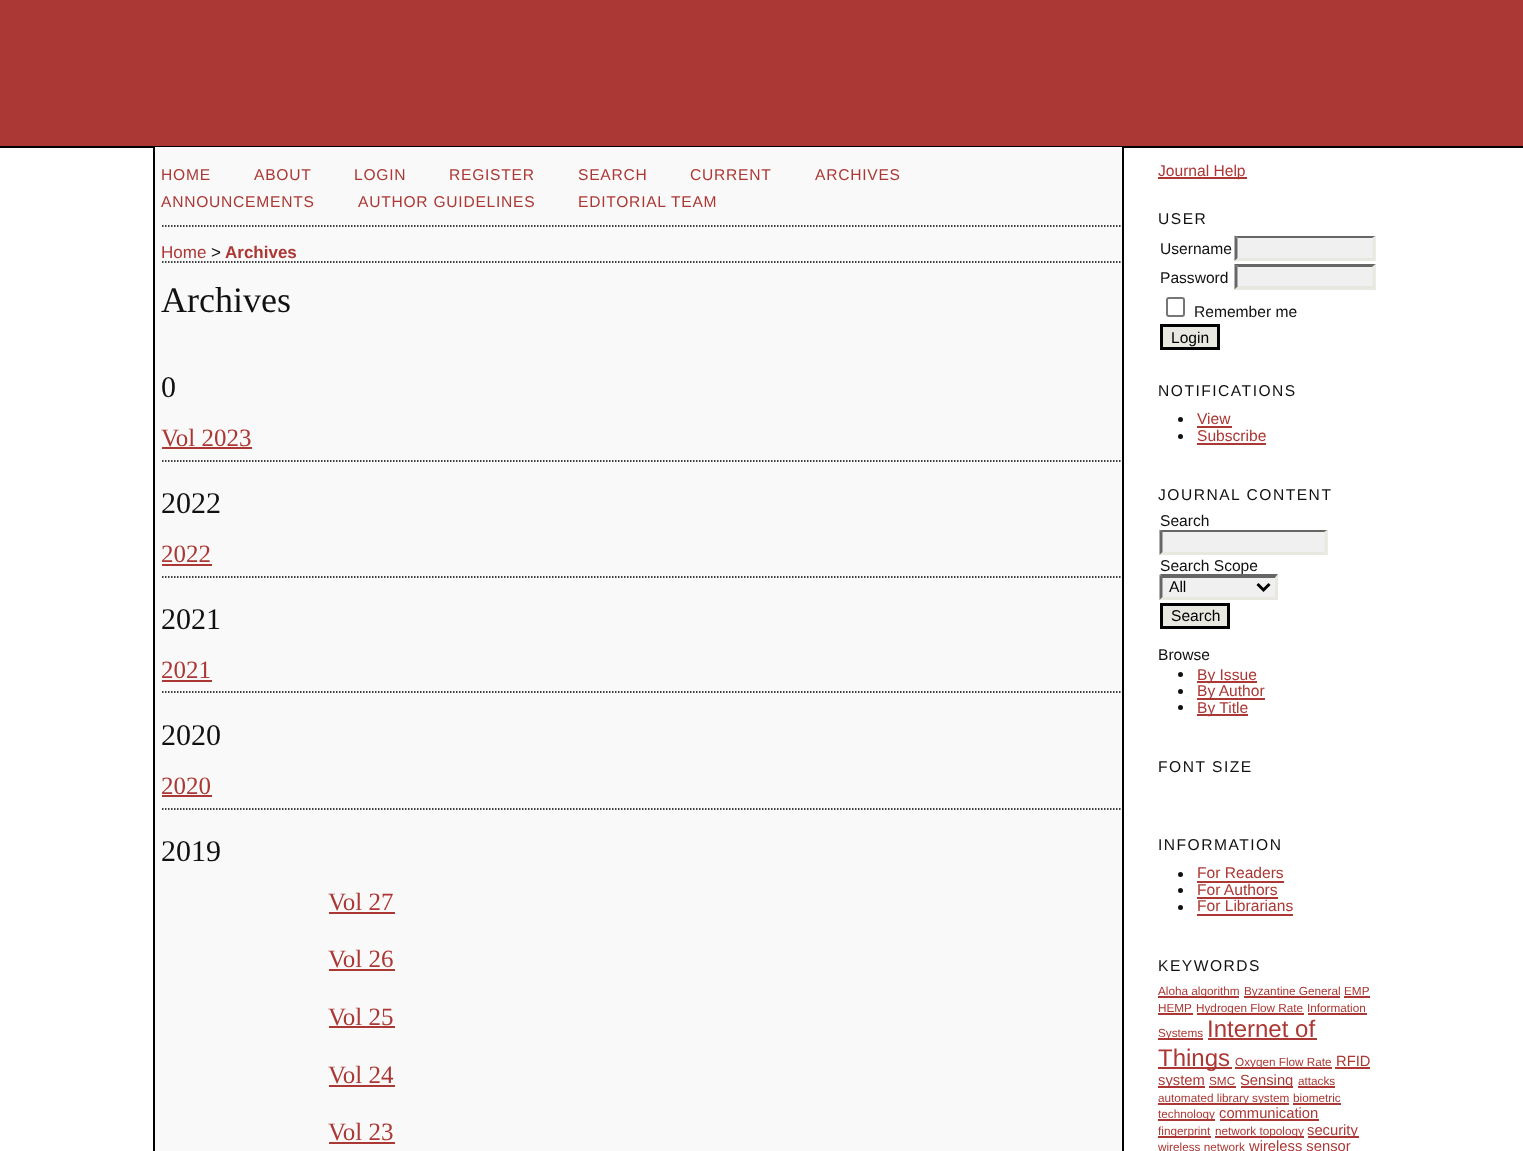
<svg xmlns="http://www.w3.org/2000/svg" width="1523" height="1151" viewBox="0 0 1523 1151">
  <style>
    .t1 { font: 15.6px Liberation Sans; letter-spacing: 0.75px; fill: #ab3834; }
    .t2 { font: 17px Liberation Sans; fill: #ab3834; }
    .t3 { font: 17px Liberation Sans; fill: #111; }
    .t4 { font: bold 17px Liberation Sans; fill: #ab3834; }
    .t5 { font: 36px Liberation Serif; fill: #111; }
    .t6 { font: 30px Liberation Serif; fill: #111; }
    .t7 { font: 25px Liberation Serif; fill: #ab3834; }
    .t8 { font: 15.6px Liberation Sans; fill: #ab3834; }
    .t9 { font: 15.6px Liberation Sans; letter-spacing: 1.5px; fill: #111; }
    .t10 { font: 15.6px Liberation Sans; fill: #111; }
    .t11 { font: 15.6px Liberation Sans; fill: #000; }
    .t12 { font: 11.75px Liberation Sans; fill: #ab3834; }
    .t13 { font: 24px Liberation Sans; fill: #ab3834; }
    .t14 { font: 14.75px Liberation Sans; fill: #ab3834; }
  </style>
  <rect width="100%" height="100%" fill="#fff"/>
  <rect x="0" y="0" width="1523" height="146" fill="#ab3834"/>
  <rect x="0" y="146" width="1523" height="2" fill="#000"/>
  <rect x="155" y="147" width="967" height="1004" fill="#f9f9f9"/>
  <rect x="1122" y="147" width="2" height="1004" fill="#000"/>
  <rect x="153" y="147" width="2" height="1004" fill="#000"/>
  <path d="M162 226H1122" fill="none" stroke="#000" stroke-width="1.5" stroke-dasharray="1.5 1.5"/>
  <text x="161" y="180" class="t1">HOME</text>
  <text x="254" y="180" class="t1">ABOUT</text>
  <text x="354" y="180" class="t1">LOGIN</text>
  <text x="449" y="180" class="t1">REGISTER</text>
  <text x="578" y="180" class="t1">SEARCH</text>
  <text x="690" y="180" class="t1">CURRENT</text>
  <text x="815" y="180" class="t1">ARCHIVES</text>
  <text x="161" y="207" class="t1">ANNOUNCEMENTS</text>
  <text x="358" y="207" class="t1">AUTHOR GUIDELINES</text>
  <text x="578" y="207" class="t1">EDITORIAL TEAM</text>
  <path d="M162 262H1122" fill="none" stroke="#000" stroke-width="1.5" stroke-dasharray="1.5 1.5"/>
  <text x="161" y="258" class="t2">Home</text>
  <text x="211" y="258" class="t3">&gt;</text>
  <text x="225" y="258" class="t4">Archives</text>
  <text x="161" y="312" class="t5">Archives</text>
  <text x="161" y="397" class="t6">0</text>
  <text x="161" y="446" class="t7">Vol 2023</text>
  <rect x="162" y="447" width="90" height="2" fill="#ab3834"/>
  <path d="M162 461H1122" fill="none" stroke="#000" stroke-width="1.5" stroke-dasharray="1.5 1.5"/>
  <text x="161" y="513" class="t6">2022</text>
  <text x="161" y="562" class="t7">2022</text>
  <rect x="162" y="564" width="50" height="2" fill="#ab3834"/>
  <path d="M162 577H1122" fill="none" stroke="#000" stroke-width="1.5" stroke-dasharray="1.5 1.5"/>
  <text x="161" y="629" class="t6">2021</text>
  <text x="161" y="678" class="t7">2021</text>
  <rect x="162" y="680" width="50" height="2" fill="#ab3834"/>
  <path d="M162 692H1122" fill="none" stroke="#000" stroke-width="1.5" stroke-dasharray="1.5 1.5"/>
  <text x="161" y="745" class="t6">2020</text>
  <text x="161" y="794" class="t7">2020</text>
  <rect x="162" y="795" width="50" height="2" fill="#ab3834"/>
  <path d="M162 809H1122" fill="none" stroke="#000" stroke-width="1.5" stroke-dasharray="1.5 1.5"/>
  <text x="161" y="861" class="t6">2019</text>
  <text x="328" y="910" class="t7">Vol 27</text>
  <rect x="329" y="912" width="66" height="2" fill="#ab3834"/>
  <text x="328" y="967" class="t7">Vol 26</text>
  <rect x="329" y="969" width="66" height="2" fill="#ab3834"/>
  <text x="328" y="1025" class="t7">Vol 25</text>
  <rect x="329" y="1026" width="66" height="2" fill="#ab3834"/>
  <text x="328" y="1083" class="t7">Vol 24</text>
  <rect x="329" y="1085" width="66" height="2" fill="#ab3834"/>
  <text x="328" y="1140" class="t7">Vol 23</text>
  <rect x="329" y="1142" width="66" height="2" fill="#ab3834"/>
  <rect x="1158" y="177" width="89" height="2" fill="#ab3834"/>
  <text x="1158" y="176" class="t8">Journal Help</text>
  <text x="1158" y="224" class="t9">USER</text>
  <text x="1160" y="254" class="t10">Username</text>
  <rect x="1235" y="236" width="141" height="25" fill="#f0f0f0"/>
  <path d="M1234 236H1376L1372 238H1238Z" fill="#666"/>
  <path d="M1375.5 235.5V261L1372.5 258V238.5Z" fill="#e8e8e1"/>
  <path d="M1376 261H1234L1238 258H1372Z" fill="#e8e8e1"/>
  <path d="M1234.5 261V235.5L1237.5 238.5V258Z" fill="#666"/>
  <text x="1160" y="283" class="t10">Password</text>
  <rect x="1235" y="264" width="141" height="26" fill="#f0f0f0"/>
  <path d="M1234 264H1376L1372 267H1238Z" fill="#666"/>
  <path d="M1375.5 264V289.5L1372.5 286.5V267Z" fill="#e8e8e1"/>
  <path d="M1376 290H1234L1238 286H1372Z" fill="#e8e8e1"/>
  <path d="M1234.5 289.5V264L1237.5 267V286.5Z" fill="#666"/>
  <rect x="1167" y="298" width="17" height="18" rx="2" fill="none" stroke="#767676" stroke-width="2"/>
  <text x="1194" y="317" class="t10">Remember me</text>
  <rect x="1161.5" y="325.5" width="57" height="23" fill="#e8e8e1" stroke="#000" stroke-width="3"/>
  <text x="1171" y="343" class="t11">Login</text>
  <text x="1158" y="396" class="t9">NOTIFICATIONS</text>
  <circle cx="1180.5" cy="419.5" r="2.5" fill="#111"/>
  <text x="1197" y="424" class="t8">View</text>
  <rect x="1197" y="426" width="35" height="2" fill="#ab3834"/>
  <circle cx="1180.5" cy="436.5" r="2.5" fill="#111"/>
  <text x="1197" y="441" class="t8">Subscribe</text>
  <rect x="1197" y="443" width="69" height="2" fill="#ab3834"/>
  <text x="1158" y="500" class="t9">JOURNAL CONTENT</text>
  <text x="1160" y="526" class="t10">Search</text>
  <rect x="1160" y="530" width="168" height="25" fill="#f0f0f0"/>
  <path d="M1160 530H1328L1324 532H1162Z" fill="#666"/>
  <path d="M1327.5 529.5V555L1324.5 552V532.5Z" fill="#e8e8e1"/>
  <path d="M1328 555H1160L1162 552H1324Z" fill="#e8e8e1"/>
  <path d="M1159.5 555V529.5L1162.5 532.5V552Z" fill="#666"/>
  <text x="1160" y="571" class="t10">Search Scope</text>
  <rect x="1160" y="575" width="118" height="25" fill="#f0f0f0"/>
  <path d="M1160 574H1278L1275 578H1162Z" fill="#666"/>
  <path d="M1278 574.5V600L1275 597V577.5Z" fill="#e8e8e1"/>
  <path d="M1278 600H1160L1162 597H1275Z" fill="#e8e8e1"/>
  <path d="M1159.5 600V574.5L1162.5 577.5V597Z" fill="#666"/>
  <path d="M1257.5 584L1263.5 590L1269.5 584" fill="none" stroke="#000" stroke-width="3"/>
  <text x="1169" y="592" class="t11">All</text>
  <rect x="1161.5" y="604.5" width="67" height="23" fill="#e8e8e1" stroke="#000" stroke-width="3"/>
  <text x="1171" y="621" class="t11">Search</text>
  <text x="1158" y="660" class="t10">Browse</text>
  <circle cx="1180.5" cy="674.5" r="2.5" fill="#111"/>
  <rect x="1197" y="681" width="60" height="2" fill="#ab3834"/>
  <text x="1197" y="680" class="t8">By Issue</text>
  <circle cx="1180.5" cy="691.5" r="2.5" fill="#111"/>
  <rect x="1197" y="698" width="68" height="2" fill="#ab3834"/>
  <text x="1197" y="696" class="t8">By Author</text>
  <circle cx="1180.5" cy="707.5" r="2.5" fill="#111"/>
  <rect x="1197" y="714" width="51" height="2" fill="#ab3834"/>
  <text x="1197" y="713" class="t8">By Title</text>
  <text x="1158" y="772" class="t9">FONT SIZE</text>
  <text x="1158" y="850" class="t9">INFORMATION</text>
  <circle cx="1180.5" cy="874.5" r="2.5" fill="#111"/>
  <text x="1197" y="878" class="t8">For Readers</text>
  <rect x="1197" y="881" width="87" height="2" fill="#ab3834"/>
  <circle cx="1180.5" cy="890.5" r="2.5" fill="#111"/>
  <text x="1197" y="895" class="t8">For Authors</text>
  <rect x="1197" y="897" width="81" height="2" fill="#ab3834"/>
  <circle cx="1180.5" cy="907.5" r="2.5" fill="#111"/>
  <text x="1197" y="911" class="t8">For Librarians</text>
  <rect x="1197" y="914" width="96" height="2" fill="#ab3834"/>
  <text x="1158" y="971" class="t9">KEYWORDS</text>
  <rect x="1158" y="996" width="81" height="2" fill="#ab3834"/>
  <text x="1158" y="995" class="t12">Aloha algorithm</text>
  <rect x="1244" y="996" width="96" height="2" fill="#ab3834"/>
  <text x="1244" y="995" class="t12">Byzantine General</text>
  <text x="1344" y="995" class="t12">EMP</text>
  <rect x="1344" y="996" width="26" height="2" fill="#ab3834"/>
  <text x="1158" y="1012" class="t12">HEMP</text>
  <rect x="1158" y="1013" width="35" height="2" fill="#ab3834"/>
  <rect x="1197" y="1013" width="107" height="2" fill="#ab3834"/>
  <text x="1196" y="1012" class="t12">Hydrogen Flow Rate</text>
  <text x="1307" y="1012" class="t12">Information</text>
  <rect x="1308" y="1013" width="59" height="2" fill="#ab3834"/>
  <rect x="1158" y="1038" width="45" height="2" fill="#ab3834"/>
  <text x="1158" y="1037" class="t12">Systems</text>
  <text x="1207" y="1037" class="t13">Internet of</text>
  <rect x="1208" y="1038" width="109" height="2" fill="#ab3834"/>
  <rect x="1158" y="1067" width="74" height="2" fill="#ab3834"/>
  <text x="1158" y="1066" class="t13">Things</text>
  <rect x="1235" y="1067" width="97" height="2" fill="#ab3834"/>
  <text x="1235" y="1066" class="t12">Oxygen Flow Rate</text>
  <text x="1336" y="1066" class="t14">RFID</text>
  <rect x="1335" y="1067" width="35" height="2" fill="#ab3834"/>
  <rect x="1158" y="1086" width="47" height="2" fill="#ab3834"/>
  <text x="1158" y="1085" class="t14">system</text>
  <text x="1209" y="1085" class="t12">SMC</text>
  <rect x="1209" y="1086" width="27" height="2" fill="#ab3834"/>
  <rect x="1241" y="1086" width="52" height="2" fill="#ab3834"/>
  <text x="1240" y="1085" class="t14">Sensing</text>
  <text x="1298" y="1085" class="t12">attacks</text>
  <rect x="1298" y="1086" width="37" height="2" fill="#ab3834"/>
  <rect x="1158" y="1103" width="131" height="2" fill="#ab3834"/>
  <text x="1158" y="1102" class="t12">automated library system</text>
  <text x="1293" y="1102" class="t12">biometric</text>
  <rect x="1293" y="1103" width="48" height="2" fill="#ab3834"/>
  <rect x="1158" y="1119" width="57" height="2" fill="#ab3834"/>
  <text x="1158" y="1118" class="t12">technology</text>
  <text x="1219" y="1118" class="t14">communication</text>
  <rect x="1220" y="1119" width="99" height="2" fill="#ab3834"/>
  <rect x="1158" y="1136" width="53" height="2" fill="#ab3834"/>
  <text x="1158" y="1135" class="t12">fingerprint</text>
  <rect x="1215" y="1136" width="89" height="2" fill="#ab3834"/>
  <text x="1215" y="1135" class="t12">network topology</text>
  <rect x="1308" y="1136" width="51" height="2" fill="#ab3834"/>
  <text x="1307" y="1135" class="t14">security</text>
  <text x="1158" y="1151" class="t12">wireless network</text>
  <text x="1249" y="1151" class="t14">wireless sensor</text>
</svg>
